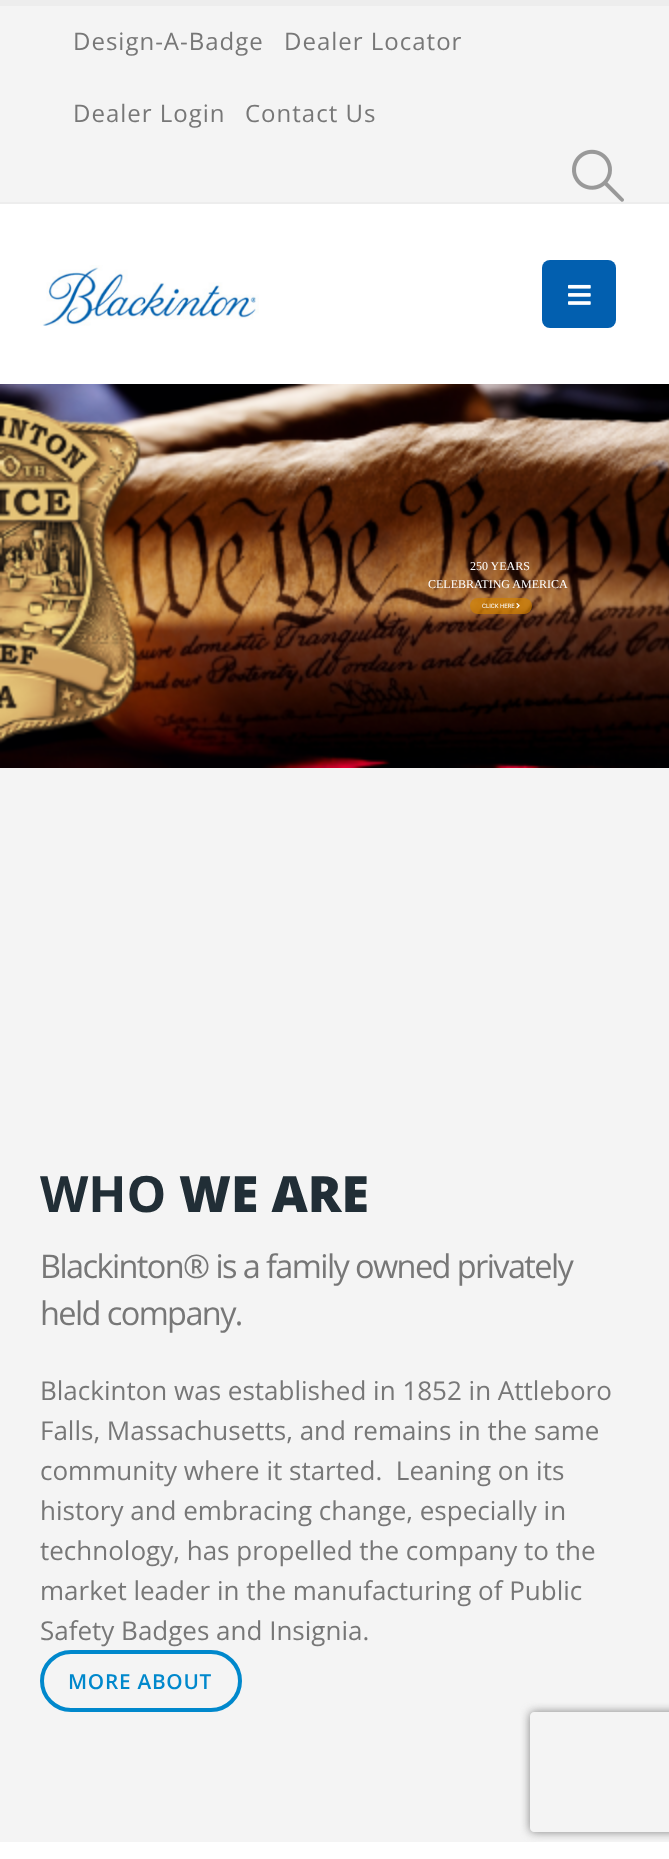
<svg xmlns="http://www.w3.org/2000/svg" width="669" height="1859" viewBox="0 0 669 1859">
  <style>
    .t1 { font: 24px Open Sans; letter-spacing: 1px; fill: #777; }
    .t2 { font: 12px Liberation Serif; fill: #fff; }
    .t3 { font: 6px Roboto; fill: #fff; }
    .t4 { font: bold 50px Open Sans; fill: #212e36; }
    .t5 { font: 800 50px Open Sans; fill: #212e36; }
    .t6 { font: 32.5px Open Sans; letter-spacing: -1.6px; fill: #777; }
    .t7 { font: 26px Open Sans; fill: #777; }
    .t8 { font: 600 20.75px Open Sans; letter-spacing: 0.75px; fill: #08c; }
  </style>
  <defs>
    <clipPath id="clip1"><path d="M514 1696H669V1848H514ZM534 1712H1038C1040 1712 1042 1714 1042 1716V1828C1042 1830 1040 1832 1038 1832H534C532 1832 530 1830 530 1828V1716C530 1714 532 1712 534 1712Z" clip-rule="evenodd"/></clipPath>
  </defs>
  <rect width="100%" height="100%" fill="#fff"/>
  <rect x="0" y="0" width="669" height="6" fill="#ededed"/>
  <rect x="0" y="6" width="669" height="196" fill="#f4f4f4"/>
  <rect x="0" y="202" width="669" height="2" fill="#ededed"/>
  <text x="73" y="50" class="t1">Design-A-Badge</text>
  <text x="284" y="50" class="t1">Dealer Locator</text>
  <text x="73" y="122" class="t1">Dealer Login</text>
  <text x="245" y="122" class="t1">Contact Us</text>
  <image x="572" y="149" width="52" height="53" href="images/1.png"/>
  <image x="40" y="265" width="219" height="61" href="images/2.png"/>
  <rect x="542" y="260" width="74" height="68" rx="8" fill="#025faf"/>
  <image x="568" y="284" width="23" height="21" href="images/3.png"/>
  <image x="0" y="384" width="669" height="384" href="images/4.png"/>
  <text x="470" y="570" class="t2">250 YEARS</text>
  <text x="428" y="588" class="t2">CELEBRATING AMERICA</text>
  <rect x="470" y="598" width="62" height="16" rx="8" fill="#ce7f00b3"/>
  <text x="482" y="608" class="t3">CLICK HERE</text>
  <image x="516" y="603" width="4" height="6" href="images/5.png"/>
  <rect x="0" y="768" width="669" height="1074" fill="#f4f4f4"/>
  <text x="40" y="1212" class="t4">WHO</text>
  <text x="179" y="1212" class="t5">WE ARE</text>
  <text x="40" y="1278" class="t6">Blackinton® is a family owned privately</text>
  <text x="40" y="1325" class="t6">held company.</text>
  <text x="40" y="1400" class="t7">Blackinton was established in 1852 in Attleboro</text>
  <text x="40" y="1440" class="t7">Falls, Massachusetts, and remains in the same</text>
  <text x="40" y="1480" class="t7" xml:space="preserve">community where it started.  Leaning on its</text>
  <text x="40" y="1520" class="t7">history and embracing change, especially in</text>
  <text x="40" y="1560" class="t7">technology, has propelled the company to the</text>
  <text x="40" y="1600" class="t7">market leader in the manufacturing of Public</text>
  <text x="40" y="1640" class="t7">Safety Badges and Insignia.</text>
  <rect x="42" y="1652" width="198" height="58" rx="29" fill="none" stroke="#08c" stroke-width="4"/>
  <text x="68" y="1689" class="t8">MORE ABOUT</text>
  <g clip-path="url(#clip1)">
    <rect x="530" y="1712" width="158" height="120" rx="4" fill="#808080" filter="blur(5px)"/>
  </g>
</svg>
